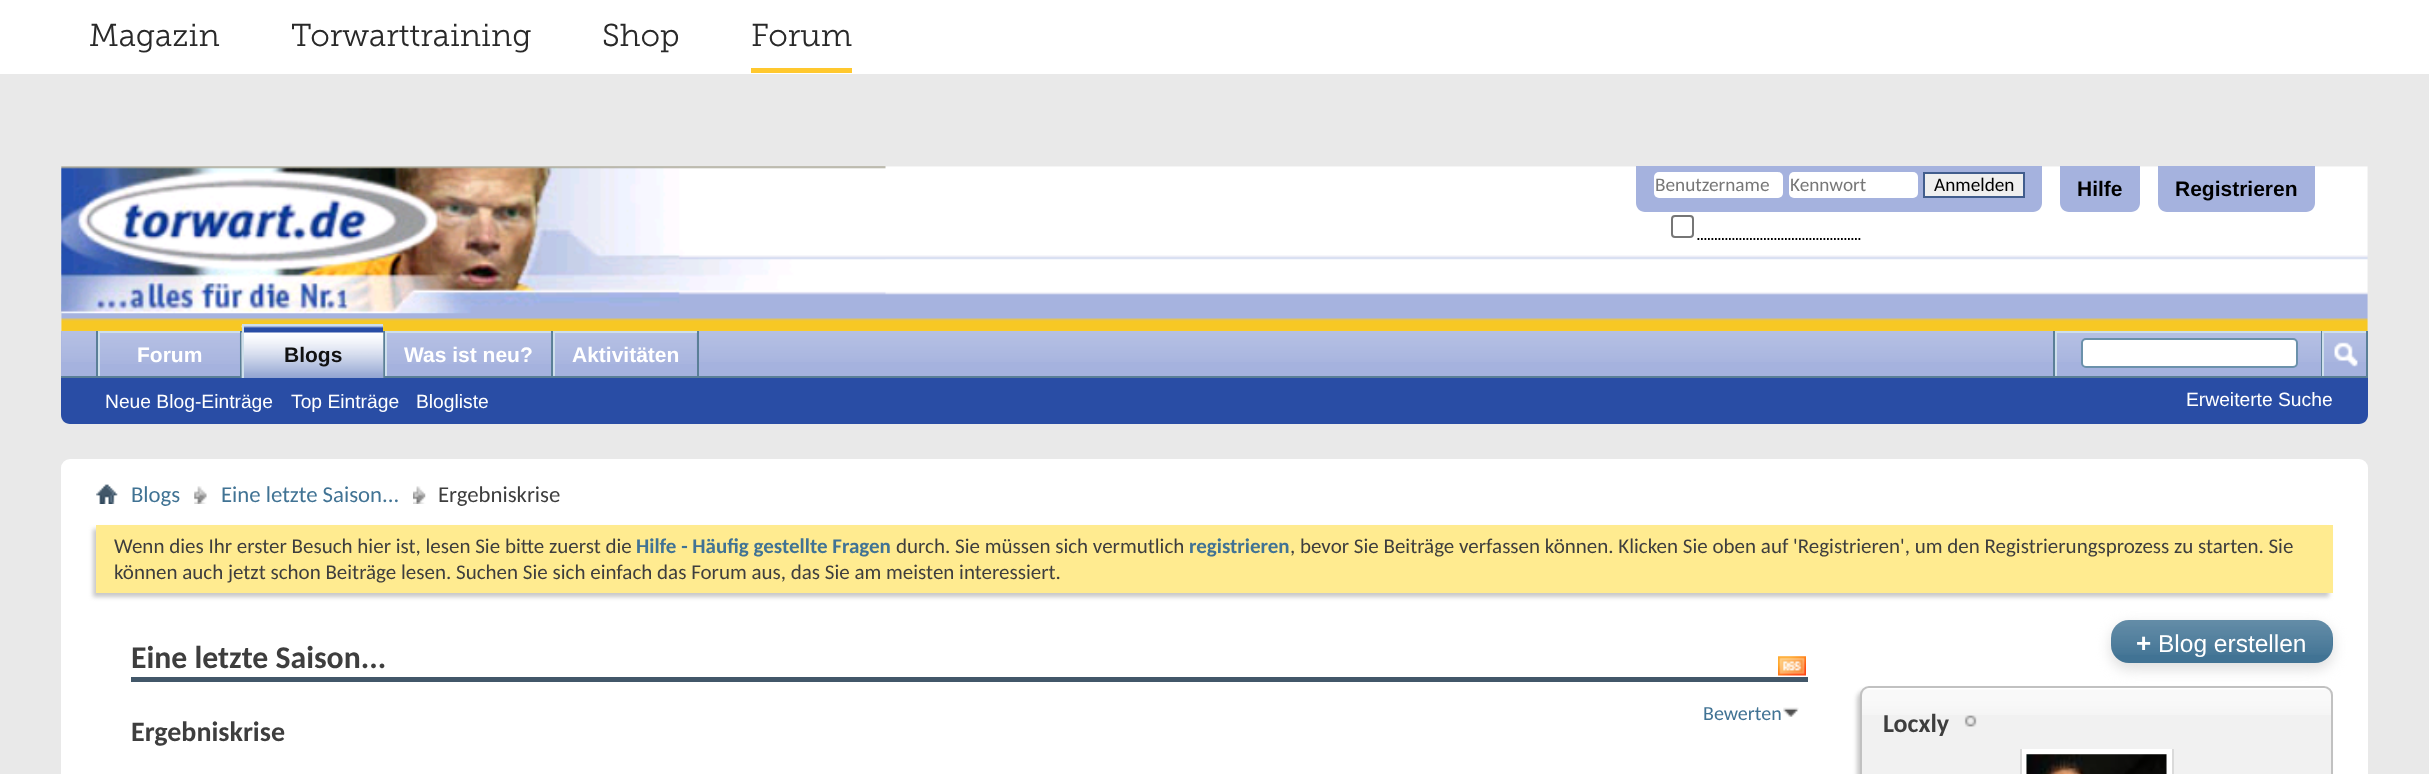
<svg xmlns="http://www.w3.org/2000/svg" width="2429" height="774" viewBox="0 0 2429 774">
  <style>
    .t1 { font: 31.5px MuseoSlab; fill: #292929; }
    .t2 { font: 19.25px Carlito; fill: #777; }
    .t3 { font: 19.25px Carlito; fill: #000; }
    .t4 { font: bold 21px Liberation Sans; fill: #000; }
    .t5 { font: bold 21px Liberation Sans; fill: #fff; }
    .t6 { font: bold 21px Liberation Sans; fill: #111; }
    .t7 { font: 19.25px Liberation Sans; fill: #fff; }
    .t8 { font: 22.75px Carlito; fill: #417394; }
    .t9 { font: 22.75px Carlito; fill: #3e3e3e; }
    .t10 { font: 21px Carlito; fill: #3e3e3e; }
    .t11 { font: bold 21px Carlito; fill: #417394; }
    .t12 { font: bold 31.75px Carlito; fill: #3e3e3e; }
    .t13 { font: 20px Carlito; fill: #417394; }
    .t14 { font: bold 28px Carlito; fill: #3e3e3e; }
    .t15 { font: bold 26px Liberation Sans; fill: #fff; }
    .t16 { font: 24.5px Liberation Sans; fill: #fff; }
    .t17 { font: bold 26px Carlito; fill: #3e3e3e; }
  </style>
  <defs>
    <clipPath id="clip1"><rect x="1873" y="749" width="448" height="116"/></clipPath>
  </defs>
  <rect width="100%" height="100%" fill="#e9e9e9"/>
  <rect x="0" y="0" width="2429" height="74" fill="#fff"/>
  <text x="89" y="46" class="t1">Magazin</text>
  <text x="291" y="46" class="t1">Torwarttraining</text>
  <text x="602" y="46" class="t1">Shop</text>
  <rect x="751" y="68" width="101" height="5" fill="#ffc82e"/>
  <text x="751" y="46" class="t1">Forum</text>
  <image x="61" y="166" width="2307" height="165" href="images/1.png"/>
  <image x="61" y="166" width="825" height="148" href="images/2.png"/>
  <path d="M1636 166H2042V203C2042 208 2038 212 2033 212H1645C1640 212 1636 208 1636 203Z" fill="#a5b2de"/>
  <rect x="1654" y="172" width="129" height="26" rx="5" fill="#fff"/>
  <text x="1655" y="191" class="t2">Benutzername</text>
  <rect x="1789" y="172" width="129" height="26" rx="5" fill="#fff"/>
  <text x="1790" y="191" class="t2">Kennwort</text>
  <rect x="1924" y="173" width="100" height="24" fill="#efefef" stroke="#415d8d" stroke-width="2"/>
  <text x="1934" y="191" class="t3">Anmelden</text>
  <rect x="1672" y="216" width="21" height="21" rx="3" fill="none" stroke="#767676" stroke-width="2"/>
  <path d="M1697.5 239H1862" fill="none" stroke="#000" stroke-width="1.8" stroke-dasharray="1.75 1.75"/>
  <path d="M2060 166H2140V203C2140 208 2136 212 2131 212H2069C2064 212 2060 208 2060 203Z" fill="#a5b2de"/>
  <text x="2077" y="196" class="t4">Hilfe</text>
  <path d="M2158 166H2315V203C2315 208 2311 212 2306 212H2167C2162 212 2158 208 2158 203Z" fill="#a5b2de"/>
  <text x="2175" y="196" class="t4">Registrieren</text>
  <path d="M61 331H2368V415C2368 420 2364 424 2359 424H70C65 424 61 420 61 415Z" fill="#294da5"/>
  <rect x="61" y="331" width="2305" height="45" fill="#a5b2de"/>
  <image x="61" y="330" width="2307" height="32" href="images/3.png"/>
  <rect x="240" y="331" width="2" height="47" fill="#5a7f97"/>
  <rect x="96" y="331" width="2" height="47" fill="#5a7f97"/>
  <rect x="100" y="333" width="140" height="29" fill="#a5b2de"/>
  <image x="100" y="333" width="140" height="31" href="images/4.png"/>
  <rect x="98" y="331" width="142" height="2" fill="#cedfeb"/>
  <rect x="98" y="331" width="2" height="47" fill="#cedfeb"/>
  <text x="137" y="362" class="t5">Forum</text>
  <rect x="383" y="331" width="2" height="45" fill="#5a7f97"/>
  <rect x="551" y="331" width="2" height="47" fill="#5a7f97"/>
  <rect x="387" y="333" width="164" height="29" fill="#a5b2de"/>
  <image x="387" y="332" width="165" height="32" href="images/6.png"/>
  <rect x="385" y="331" width="166" height="2" fill="#cedfeb"/>
  <rect x="385" y="331" width="2" height="47" fill="#cedfeb"/>
  <rect x="697" y="331" width="2" height="47" fill="#5a7f97"/>
  <rect x="553" y="331" width="144" height="2" fill="#cedfeb"/>
  <rect x="553" y="331" width="2" height="47" fill="#cedfeb"/>
  <rect x="61" y="376" width="2307" height="2" fill="#5a7f97"/>
  <rect x="244" y="326" width="139" height="52" fill="#294da5"/>
  <image x="241" y="325" width="143" height="53" href="images/5.png"/>
  <rect x="242" y="324" width="141" height="2" fill="#cedfeb"/>
  <rect x="242" y="324" width="2" height="54" fill="#cedfeb"/>
  <text x="284" y="362" class="t6">Blogs</text>
  <text x="404" y="362" class="t5">Was ist neu?</text>
  <rect x="555" y="333" width="142" height="29" fill="#a5b2de"/>
  <image x="555" y="333" width="142" height="31" href="images/7.png"/>
  <text x="572" y="362" class="t5">Aktivitäten</text>
  <text x="105" y="408" class="t7">Neue Blog-Einträge</text>
  <text x="291" y="408" class="t7">Top Einträge</text>
  <text x="416" y="408" class="t7">Blogliste</text>
  <rect x="2053" y="331" width="2" height="45" fill="#5a7f97"/>
  <rect x="2055" y="331" width="266" height="2" fill="#cedfeb"/>
  <rect x="2055" y="331" width="2" height="45" fill="#cedfeb"/>
  <rect x="2082" y="339" width="215" height="28" rx="4" fill="#fff" stroke="#6b91ab" stroke-width="2"/>
  <rect x="2366" y="331" width="2" height="45" fill="#5a7f97"/>
  <rect x="2321" y="331" width="1" height="45" fill="#5a7f97"/>
  <rect x="2322" y="331" width="44" height="2" fill="#cedfeb"/>
  <rect x="2322" y="331" width="2" height="45" fill="#cedfeb"/>
  <image x="2334" y="342" width="24" height="25" href="images/8.png"/>
  <text x="2186" y="406" class="t7">Erweiterte Suche</text>
  <rect x="61" y="459" width="2307" height="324" rx="9" fill="#fff"/>
  <image x="96" y="484" width="22" height="20" href="images/9.png"/>
  <image x="194" y="486" width="13" height="18" href="images/10.png"/>
  <text x="131" y="502" class="t8">Blogs</text>
  <image x="413" y="486" width="13" height="18" href="images/11.png"/>
  <text x="221" y="502" class="t8">Eine letzte Saison...</text>
  <text x="438" y="502" class="t9">Ergebniskrise</text>
  <rect x="93" y="529" width="2236" height="68" fill="#c8c8c8" filter="blur(2px)"/>
  <rect x="96" y="525" width="2237" height="68" fill="#ffeb90"/>
  <text x="114" y="553" class="t10">Wenn dies Ihr erster Besuch hier ist, lesen Sie bitte zuerst die</text>
  <text x="636" y="553" class="t11">Hilfe - Häufig gestellte Fragen</text>
  <text x="896" y="553" class="t10">durch. Sie müssen sich vermutlich</text>
  <text x="1189" y="553" class="t11">registrieren</text>
  <text x="1290" y="553" class="t10">, bevor Sie Beiträge verfassen können. Klicken Sie oben auf 'Registrieren', um den Registrierungsprozess zu starten. Sie</text>
  <text x="114" y="579" class="t10">können auch jetzt schon Beiträge lesen. Suchen Sie sich einfach das Forum aus, das Sie am meisten interessiert.</text>
  <rect x="131" y="677" width="1677" height="5" fill="#425769"/>
  <text x="131" y="668" class="t12">Eine letzte Saison...</text>
  <image x="1778" y="656" width="28" height="20" href="images/12.png"/>
  <text x="1703" y="720" class="t13">Bewerten</text>
  <image x="1783" y="707" width="16" height="10" href="images/13.png"/>
  <text x="131" y="741" class="t14">Ergebniskrise</text>
  <rect x="1857" y="690" width="472" height="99" rx="9" fill="#c8c8c8" filter="blur(2px)"/>
  <rect x="1861" y="687" width="471" height="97" rx="8" fill="#f1f1f1" stroke="#c1c1c1" stroke-width="2"/>
  <image x="1862" y="688" width="469" height="27" href="images/15.png"/>
  <rect x="2111" y="625" width="222" height="44" rx="18" fill="#ddd" filter="blur(7px)"/>
  <rect x="2111" y="620" width="222" height="43" rx="18" fill="#417394"/>
  <image x="2111" y="620" width="222" height="35" href="images/14.png"/>
  <text x="2136" y="652" class="t15">+</text>
  <text x="2158" y="652" class="t16">Blog erstellen</text>
  <text x="1883" y="732" class="t17">Locxly</text>
  <image x="1964" y="715" width="13" height="12" href="images/16.png"/>
  <rect x="2023.5" y="751.5" width="146" height="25" fill="none" stroke="#fff" stroke-width="5"/>
  <image x="2026" y="754" width="141" height="20" href="images/17.png"/>
  <g clip-path="url(#clip1)">
    <rect x="2021" y="748" width="152" height="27" fill="none" stroke="#dadada" stroke-width="2"/>
  </g>
</svg>
